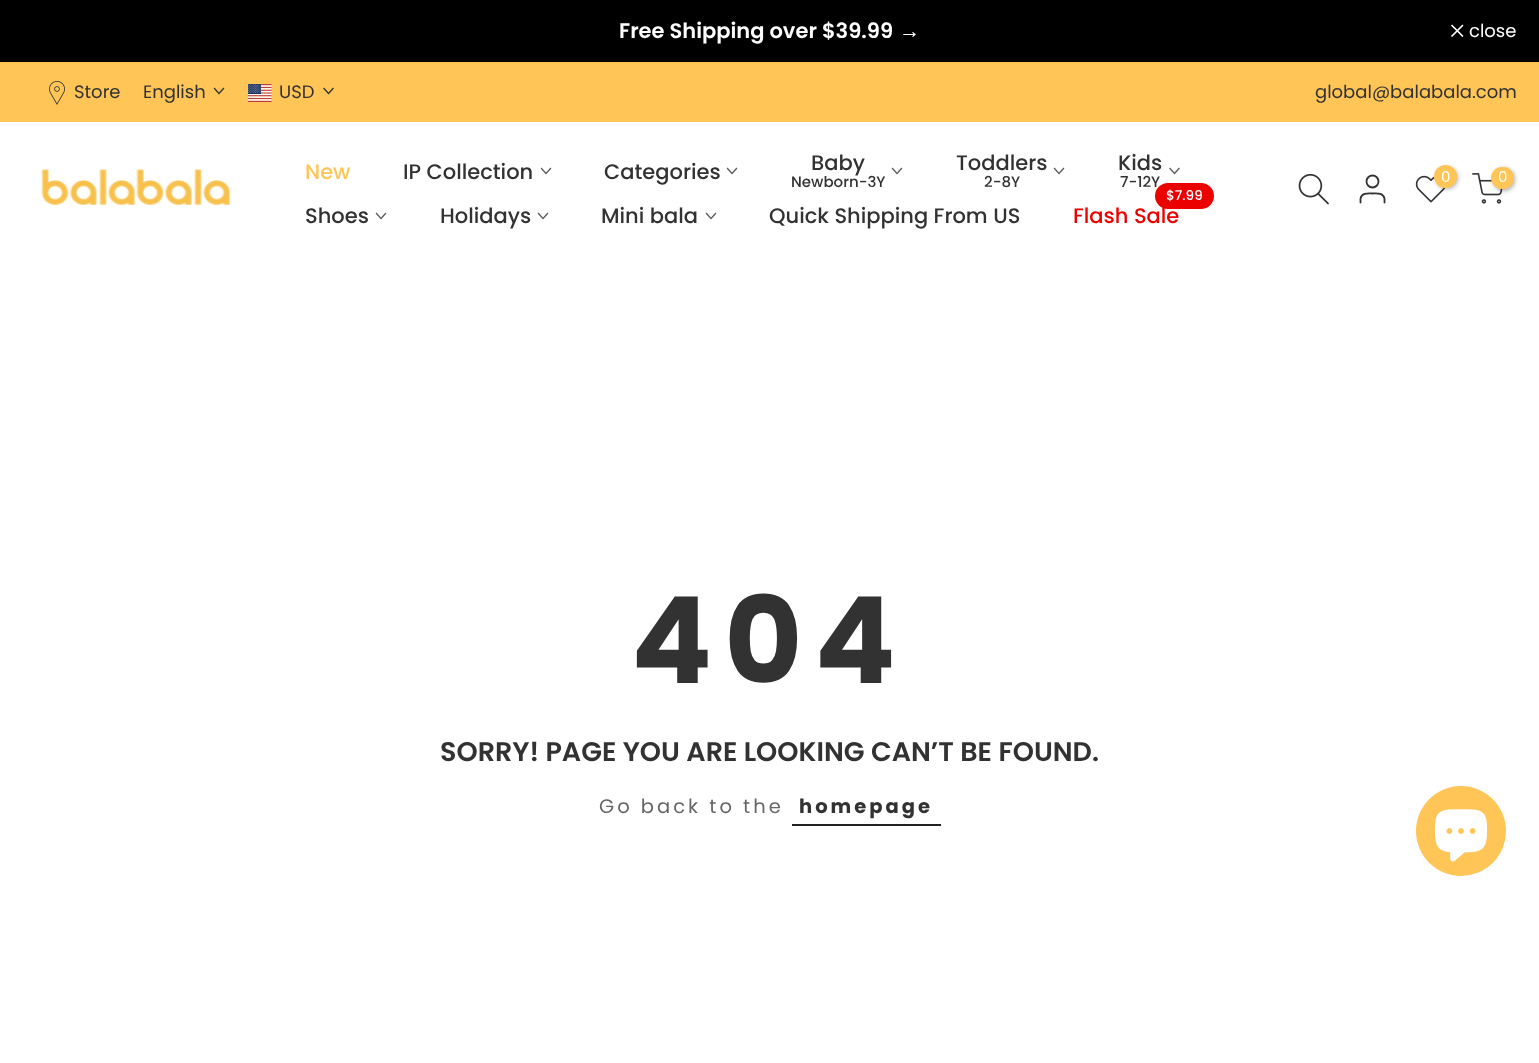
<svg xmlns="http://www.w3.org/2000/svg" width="1539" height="1063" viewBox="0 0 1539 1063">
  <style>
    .t1 { font: 600 21px Poppins; fill: #fff; }
    .t2 { font: bold 21px Liberation Serif; fill: #fff; }
    .t3 { font: 18px Poppins; fill: #fff; }
    .t4 { font: 18px Poppins; fill: #323232; }
    .t5 { font: 500 21px Poppins; fill: #ffc556; }
    .t6 { font: 500 21px Poppins; fill: #323232; }
    .t7 { font: 500 15px Poppins; fill: #323232; }
    .t8 { font: 500 13.5px Poppins; fill: #fff; }
    .t9 { font: 500 21px Poppins; fill: #ec0101; }
    .t10 { font: 15px Poppins; fill: #fff; }
    .t11 { font: bold 120px Poppins; letter-spacing: 12px; fill: #323232; }
    .t12 { font: 600 27px Poppins; fill: #323232; }
    .t13 { font: 19.5px Poppins; letter-spacing: 3px; fill: #666; }
    .t14 { font: bold 19.5px Poppins; letter-spacing: 3px; fill: #323232; }
  </style>
  <rect width="100%" height="100%" fill="#fff"/>
  <rect x="0" y="0" width="1539" height="62" fill="#000"/>
  <text x="619" y="38" class="t1">Free Shipping over $39.99</text>
  <text x="899" y="38" class="t2">→</text>
  <path d="M1463 25L1451.5 36.5M1463 36.5L1451.5 25" fill="none" stroke="#fff" stroke-width="1.7"/>
  <text x="1469" y="37" class="t3">close</text>
  <rect x="0" y="62" width="1539" height="60" fill="#ffc556"/>
  <image x="49" y="81" width="16" height="24" href="images/1.png"/>
  <text x="74" y="98" class="t4">Store</text>
  <text x="143" y="98" class="t4">English</text>
  <path d="M223.5 88.5L219 93.5L214.5 88.5" fill="none" stroke="#323232" stroke-width="1.3" stroke-linecap="square"/>
  <image x="248" y="84" width="24" height="18" href="images/2.png"/>
  <text x="279" y="98" class="t4">USD</text>
  <path d="M333 88.5L328.5 93.5L324 88.5" fill="none" stroke="#323232" stroke-width="1.3" stroke-linecap="square"/>
  <text x="1315" y="98" class="t4">global@balabala.com</text>
  <image x="41" y="169" width="190" height="36" href="images/3.png"/>
  <text x="305" y="179" class="t5">New</text>
  <text x="403" y="179" class="t6">IP Collection</text>
  <path d="M550.5 168.5L546 173.5L541.5 168.5" fill="none" stroke="#5c5c5c" stroke-width="1.3" stroke-linecap="square"/>
  <text x="604" y="179" class="t6">Categories</text>
  <path d="M736.5 168.5L732 173.5L727.5 168.5" fill="none" stroke="#5c5c5c" stroke-width="1.3" stroke-linecap="square"/>
  <text x="811" y="170" class="t6">Baby</text>
  <text x="791" y="187" class="t7">Newborn-3Y</text>
  <path d="M901.5 168.5L897 173.5L892.5 168.5" fill="none" stroke="#5c5c5c" stroke-width="1.3" stroke-linecap="square"/>
  <text x="956" y="170" class="t6">Toddlers</text>
  <text x="984" y="187" class="t7">2-8Y</text>
  <path d="M1063.5 168.5L1059 173.5L1054.5 168.5" fill="none" stroke="#5c5c5c" stroke-width="1.3" stroke-linecap="square"/>
  <text x="1118" y="170" class="t6">Kids</text>
  <text x="1120" y="187" class="t7">7-12Y</text>
  <path d="M1179 168.5L1174.5 173.5L1170 168.5" fill="none" stroke="#5c5c5c" stroke-width="1.3" stroke-linecap="square"/>
  <text x="305" y="223" class="t6">Shoes</text>
  <path d="M385.5 213.5L381 218.5L376.5 213.5" fill="none" stroke="#5c5c5c" stroke-width="1.3" stroke-linecap="square"/>
  <text x="440" y="223" class="t6">Holidays</text>
  <path d="M547.5 213.5L543 218.5L538.5 213.5" fill="none" stroke="#5c5c5c" stroke-width="1.3" stroke-linecap="square"/>
  <text x="601" y="223" class="t6">Mini bala</text>
  <path d="M715.5 213.5L711 218.5L706.5 213.5" fill="none" stroke="#5c5c5c" stroke-width="1.3" stroke-linecap="square"/>
  <text x="769" y="223" class="t6">Quick Shipping From US</text>
  <rect x="1155" y="183" width="59" height="26" rx="13" fill="#ec0101"/>
  <text x="1166" y="200" class="t8">$7.99</text>
  <text x="1073" y="223" class="t9">Flash Sale</text>
  <image x="1298" y="173" width="31" height="32" href="images/4.png"/>
  <circle cx="1372.5" cy="181.5" r="6" fill="none" stroke="#333" stroke-width="1.8"/>
  <path d="M1384.5 202.5V198.5C1383 192.5 1377 193.5 1372.5 193.5C1368 193.5 1362 192.5 1360.5 198.5V202.5" fill="none" stroke="#333" stroke-width="1.8" stroke-linecap="round" stroke-linejoin="round"/>
  <image x="1415" y="175" width="31" height="28" href="images/5.png"/>
  <rect x="1436" y="167" width="22" height="22" rx="11" fill="#0000004d" filter="blur(2px)"/>
  <circle cx="1445.5" cy="176.5" r="11.5" fill="#ffc556"/>
  <text x="1441" y="182" class="t10">0</text>
  <image x="1472" y="173" width="31" height="31" href="images/6.png"/>
  <rect x="1493" y="168" width="22" height="23" rx="11" fill="#0000004d" filter="blur(2px)"/>
  <rect x="1491" y="167" width="23" height="22" rx="11" fill="#ffc556"/>
  <text x="1498" y="182" class="t10">0</text>
  <text x="631" y="683" class="t11">404</text>
  <text x="440" y="761" class="t12">SORRY! PAGE YOU ARE LOOKING CAN’T BE FOUND.</text>
  <text x="599" y="813" class="t13">Go back to the</text>
  <text x="799" y="813" class="t14">homepage</text>
  <rect x="792" y="824" width="149" height="2" fill="#222"/>
  <circle cx="1461" cy="831" r="45" fill="#ffc556"/>
  <image x="1434" y="809" width="54" height="53" href="images/7.png"/>
</svg>
